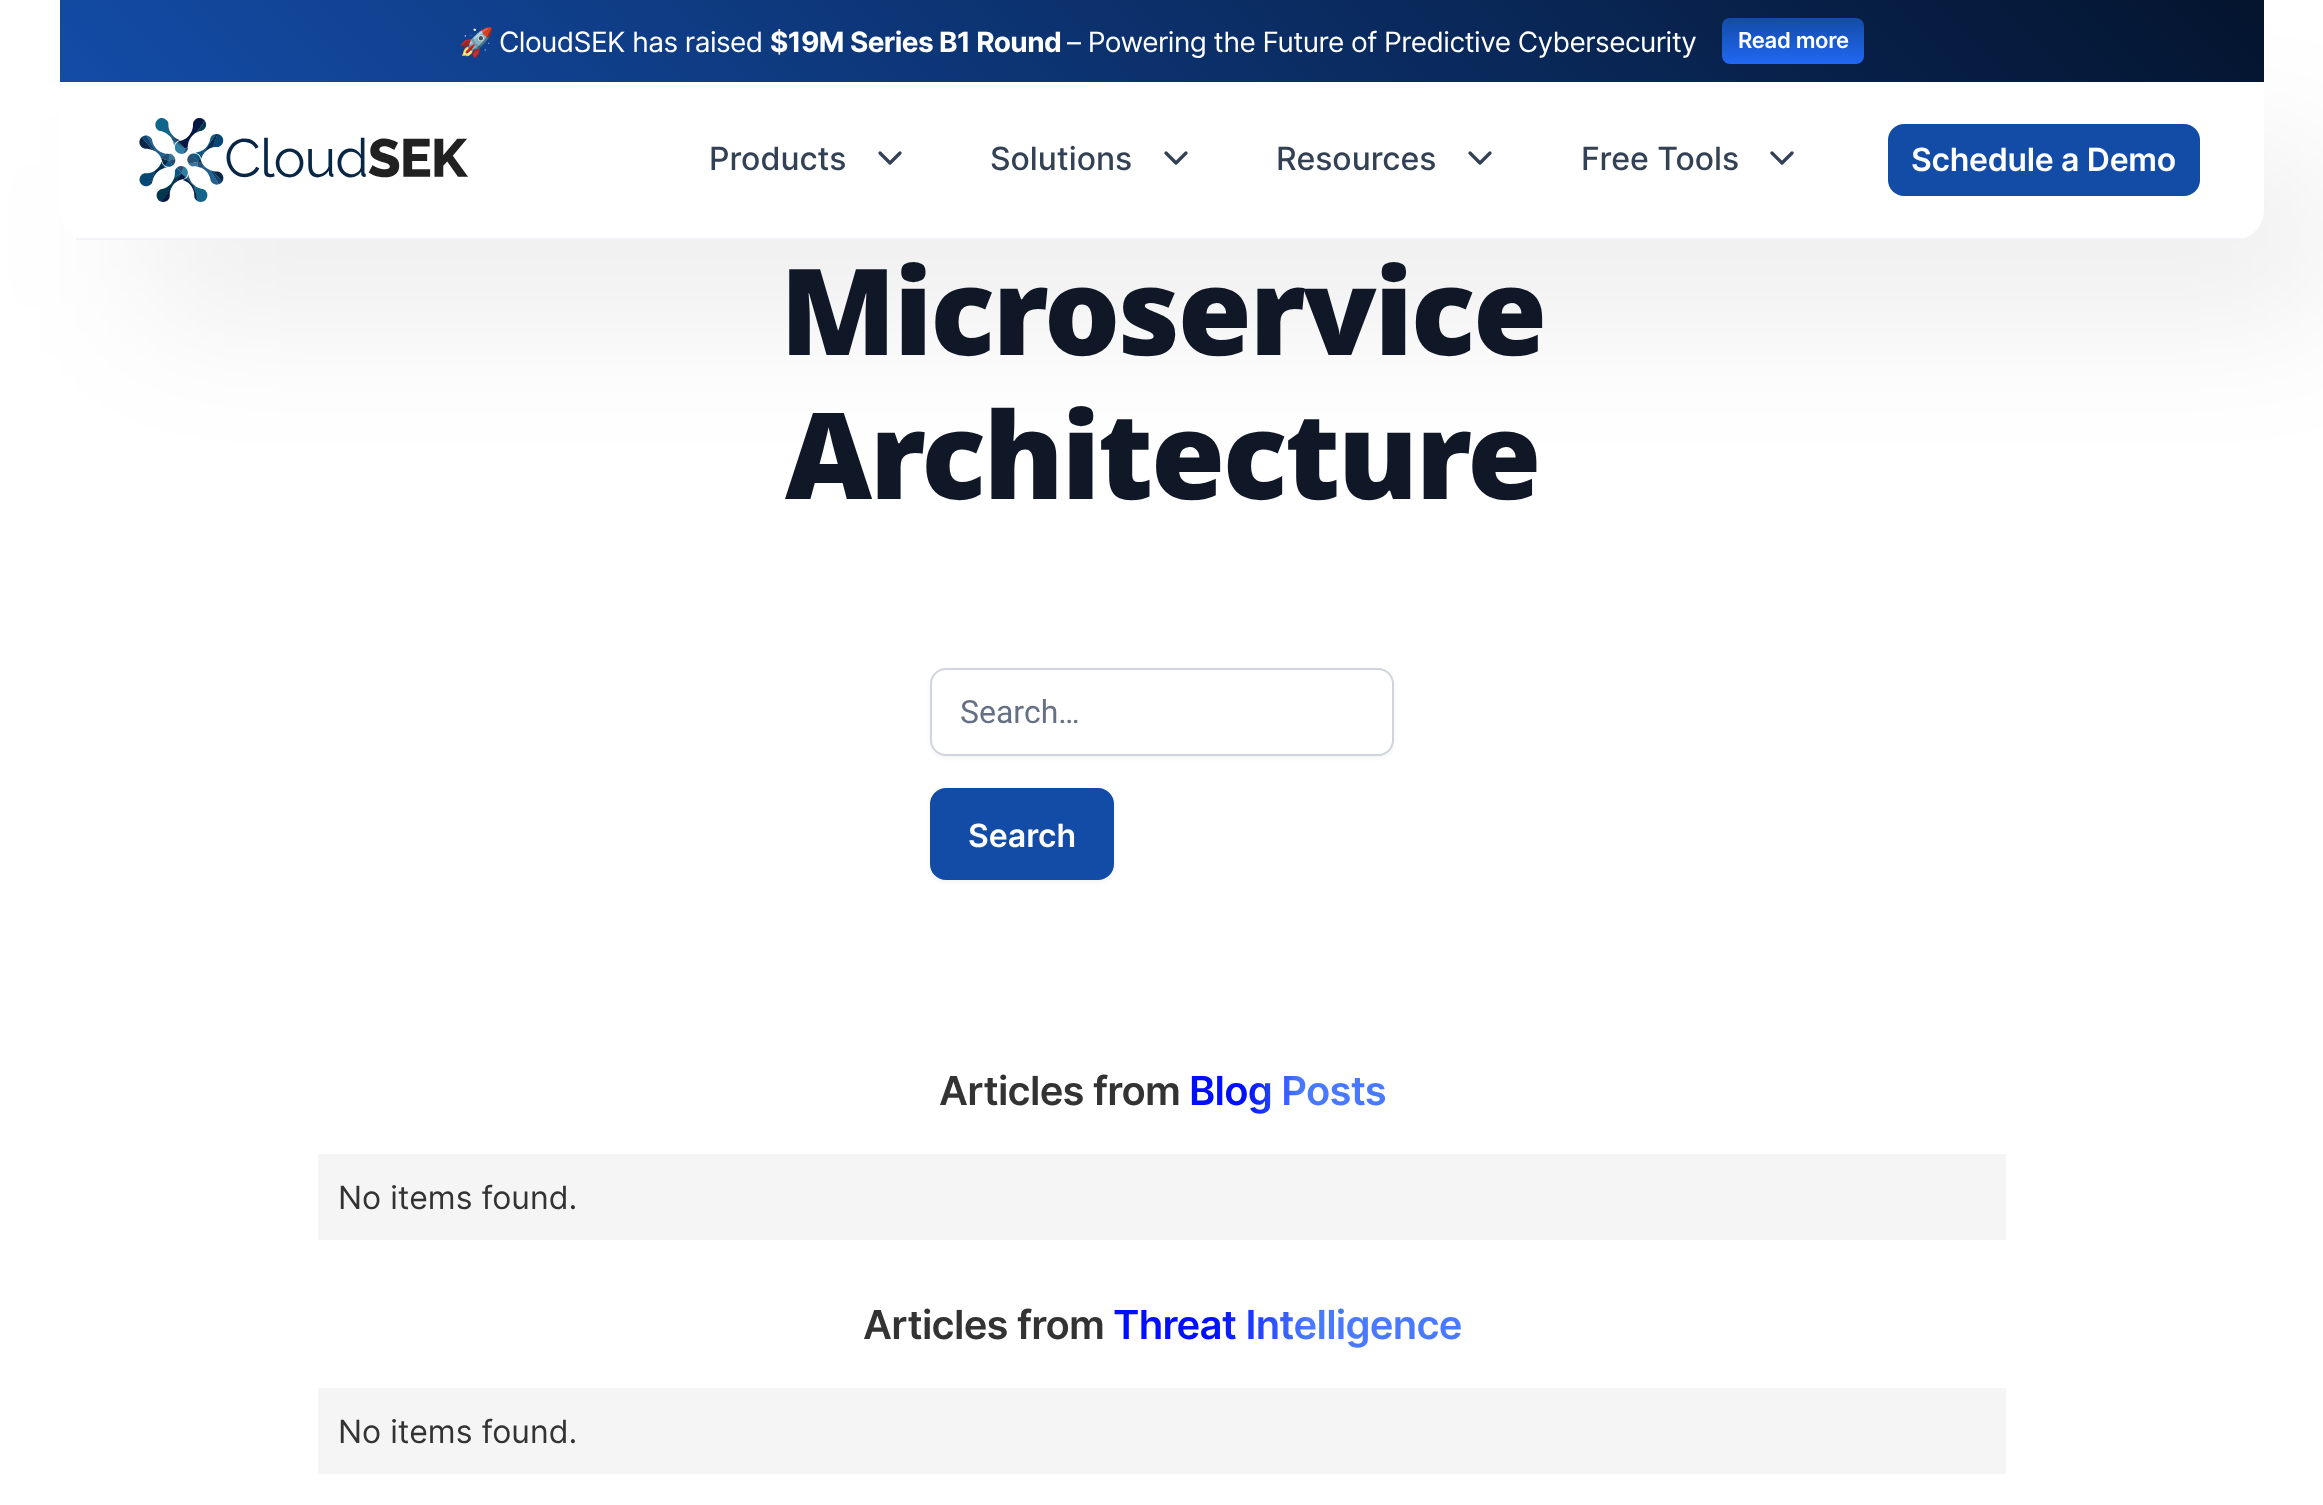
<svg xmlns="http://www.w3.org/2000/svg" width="2323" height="1505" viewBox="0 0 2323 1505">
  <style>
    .t1 { font: bold 28px Noto Color Emoji; letter-spacing: -0.55px; fill: #fff; }
    .t2 { font: 28px Inter; letter-spacing: -0.55px; fill: #fff; }
    .t3 { font: bold 28px Inter; letter-spacing: -0.55px; fill: #fff; }
    .t4 { font: 600 22px Inter; letter-spacing: -0.3px; fill: #fff; }
    .t5 { font: 500 32px Inter; fill: #334155; }
    .t6 { font: 600 32px Inter; letter-spacing: -0.3px; fill: #fff; }
    .t7 { font: 900 120px Noto Sans; letter-spacing: -2.4px; fill: #101828; }
    .t8 { font: 32px Roboto; fill: #667085; }
    .t9 { font: 600 32px Inter; fill: #fff; }
    .t10 { font: 600 40px Inter; letter-spacing: -0.75px; fill: #333; }
    .t11 { font: 600 40px Inter; letter-spacing: -0.75px; fill: url(#g1); }
    .t12 { font: 32px Inter; fill: #333; }
    .t13 { font: 600 40px Inter; letter-spacing: -0.75px; fill: url(#g2); }
  </style>
  <defs>
    <linearGradient id="g1" gradientUnits="userSpaceOnUse" x1="1188" y1="1087" x2="1386" y2="1095"><stop offset="0.29" stop-color="#000dff"/><stop offset="0.56" stop-color="#4979ff"/></linearGradient>
    <linearGradient id="g2" gradientUnits="userSpaceOnUse" x1="1112" y1="1317" x2="1461" y2="1332"><stop offset="0.29" stop-color="#000dff"/><stop offset="0.56" stop-color="#4979ff"/></linearGradient>
    <linearGradient id="g3" gradientUnits="userSpaceOnUse" x1="1734" y1="-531" x2="591" y2="613"><stop offset="0" stop-color="#04142e"/><stop offset="1" stop-color="#134ca7"/></linearGradient>
    <linearGradient id="g4" gradientUnits="userSpaceOnUse" x1="1793" y1="18" x2="1793" y2="64"><stop offset="0" stop-color="#134ca7"/><stop offset="1" stop-color="#2167f3"/></linearGradient>
  </defs>
  <rect width="100%" height="100%" fill="#fff"/>
  <rect x="142" y="162" width="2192" height="148" rx="24" fill="#00000014" filter="blur(74px)"/>
  <path d="M60 80H2264V210C2264 226.5 2250.5 240 2234 240H90C73.5 240 60 226.5 60 210Z" fill="#fff"/>
  <rect x="60" y="0" width="2204" height="82" fill="url(#g3)"/>
  <text x="459" y="52" class="t1">🚀</text>
  <text x="499" y="52" class="t2">CloudSEK has raised</text>
  <text x="770" y="52" class="t3">$19M Series B1 Round</text>
  <text x="1067" y="52" class="t2">– Powering the Future of Predictive Cybersecurity</text>
  <rect x="1722" y="18" width="142" height="46" rx="8" fill="url(#g4)"/>
  <text x="1738" y="48" class="t4">Read more</text>
  <rect x="76" y="238" width="2174" height="2" fill="#f2f4f7"/>
  <image x="139" y="118" width="329" height="84" href="images/1.png"/>
  <text x="709" y="170" class="t5">Products</text>
  <path d="M880 153L890 163L900 153" fill="none" stroke="#334155" stroke-width="3.3" stroke-linecap="round" stroke-linejoin="round"/>
  <text x="990" y="170" class="t5">Solutions</text>
  <path d="M1166 153L1176 163L1186 153" fill="none" stroke="#334155" stroke-width="3.3" stroke-linecap="round" stroke-linejoin="round"/>
  <text x="1276" y="170" class="t5">Resources</text>
  <path d="M1470 153L1480 163L1490 153" fill="none" stroke="#334155" stroke-width="3.3" stroke-linecap="round" stroke-linejoin="round"/>
  <text x="1581" y="170" class="t5">Free Tools</text>
  <path d="M1772 153L1782 163L1792 153" fill="none" stroke="#334155" stroke-width="3.3" stroke-linecap="round" stroke-linejoin="round"/>
  <rect x="1888" y="124" width="312" height="72" rx="16" fill="#134ca7"/>
  <text x="1911" y="171" class="t6">Schedule a Demo</text>
  <text x="780" y="355" class="t7">Microservice</text>
  <text x="785" y="499" class="t7">Architecture</text>
  <rect x="930" y="670" width="464" height="88" rx="16" fill="#1018280d" filter="blur(2px)"/>
  <rect x="931" y="669" width="462" height="86" rx="15" fill="#fff" stroke="#d0d5dd" stroke-width="2"/>
  <text x="960" y="723" class="t8">Search…</text>
  <rect x="930" y="790" width="184" height="92" rx="16" fill="#1018280d" filter="blur(2px)"/>
  <rect x="931" y="789" width="182" height="90" rx="15" fill="#134ca7" stroke="#134ca7" stroke-width="2"/>
  <text x="968" y="847" class="t9">Search</text>
  <text x="939" y="1105" class="t10">Articles from</text>
  <text x="1189" y="1105" class="t11">Blog Posts</text>
  <rect x="318" y="1154" width="1688" height="86" fill="#f5f5f5"/>
  <text x="338" y="1209" class="t12">No items found.</text>
  <text x="863" y="1339" class="t10">Articles from</text>
  <text x="1113" y="1339" class="t13">Threat Intelligence</text>
  <rect x="318" y="1388" width="1688" height="86" fill="#f5f5f5"/>
  <text x="338" y="1443" class="t12">No items found.</text>
</svg>
